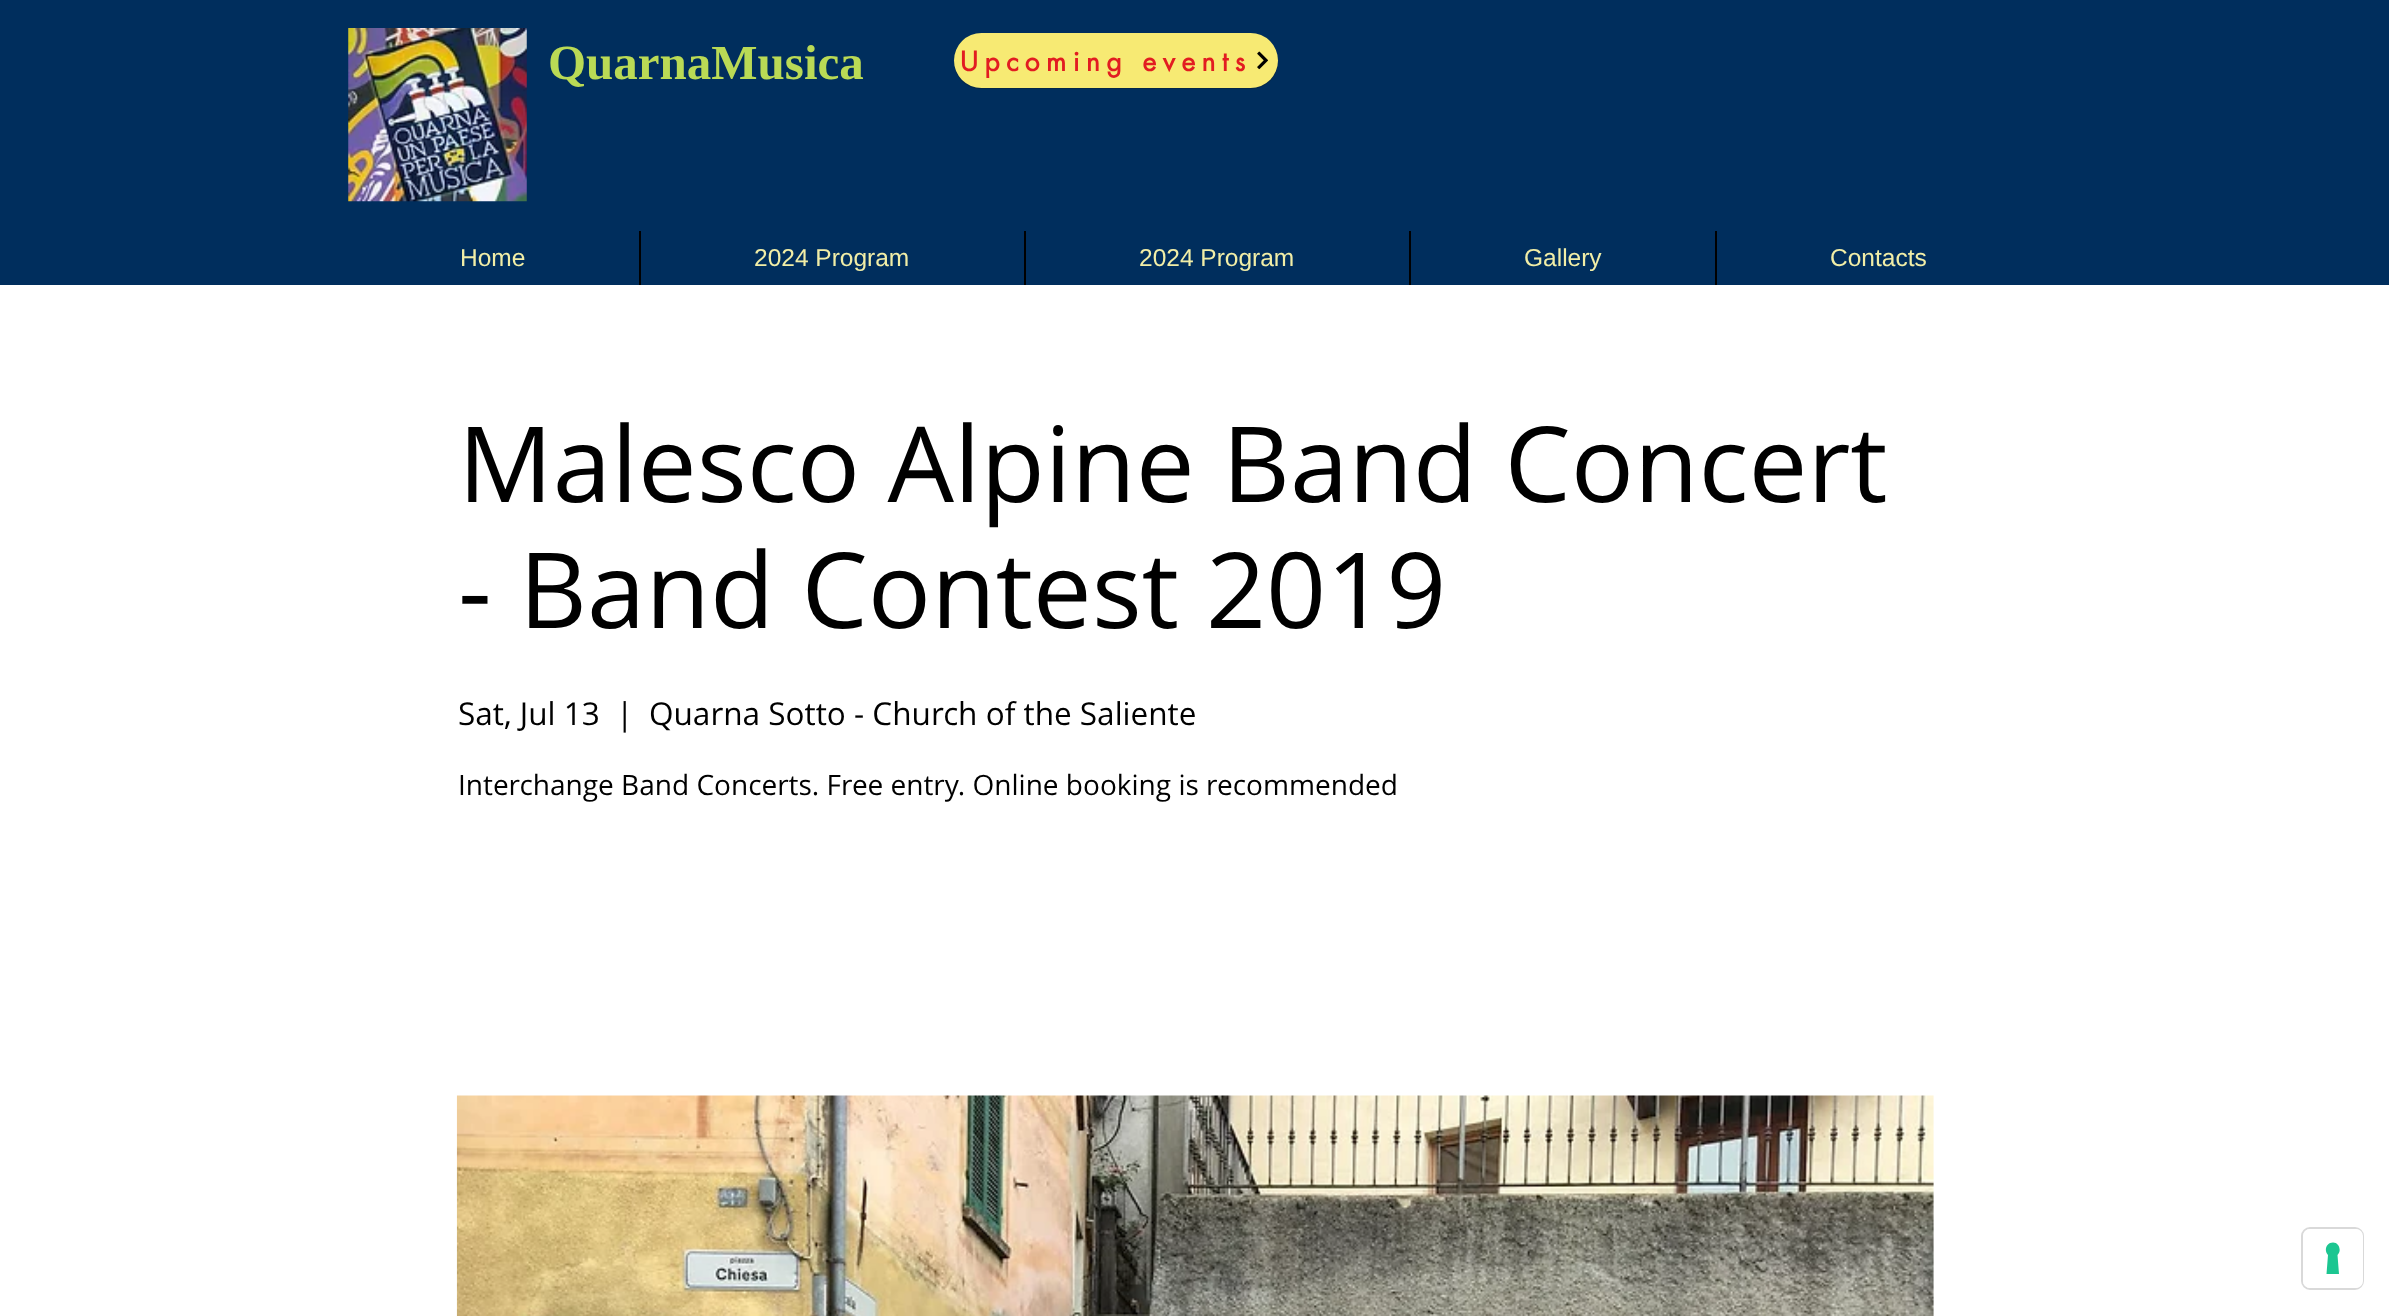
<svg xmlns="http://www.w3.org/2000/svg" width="2389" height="1316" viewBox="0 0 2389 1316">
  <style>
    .t1 { font: bold 49px Liberation Serif; fill: #bada55; }
    .t2 { font: bold 26.25px futura; letter-spacing: 6.5px; fill: #e21c21; }
    .t3 { font: 24.5px Liberation Sans; fill: #f1eea7; }
    .t4 { font: 105px Open Sans; fill: #000; }
    .t5 { font: 31.5px Open Sans; fill: #000; }
    .t6 { font: 28px Open Sans; fill: #000; }
  </style>
  <rect width="100%" height="100%" fill="#fff"/>
  <rect x="0" y="0" width="2389" height="285" fill="#002e5d"/>
  <image x="348" y="28" width="179" height="174" href="images/1.png"/>
  <text x="548" y="79" class="t1">QuarnaMusica</text>
  <path d="M954 65C956 79 967 89 981 89H1251C1266 89 1278 77 1278 62C1278 59 1277 56 1277 53L1278 60C1278 75 1265 88 1250 88H981C968 88 957 78 954 65Z" fill="#052749"/>
  <rect x="954" y="33" width="324" height="55" rx="27.5" fill="#f7ea73"/>
  <text x="960" y="71" class="t2">Upcoming events</text>
  <image x="1257" y="51" width="11" height="19" href="images/2.png"/>
  <text x="460" y="266" class="t3">Home</text>
  <rect x="639" y="231" width="2" height="54" fill="#000"/>
  <text x="754" y="266" class="t3">2024 Program</text>
  <rect x="1024" y="231" width="2" height="54" fill="#000"/>
  <text x="1139" y="266" class="t3">2024 Program</text>
  <rect x="1409" y="231" width="2" height="54" fill="#000"/>
  <text x="1524" y="266" class="t3">Gallery</text>
  <rect x="1715" y="231" width="2" height="54" fill="#000"/>
  <text x="1830" y="266" class="t3">Contacts</text>
  <text x="458" y="502" class="t4">Malesco Alpine Band Concert</text>
  <text x="458" y="628" class="t4">- Band Contest 2019</text>
  <text x="458" y="725" class="t5">Sat, Jul 13</text>
  <text x="616" y="725" class="t5">|</text>
  <text x="649" y="725" class="t5">Quarna Sotto - Church of the Saliente</text>
  <text x="458" y="795" class="t6">Interchange Band Concerts. Free entry. Online booking is recommended</text>
  <image x="456" y="1095" width="1478" height="221" href="images/3.png"/>
  <rect x="2302" y="1228" width="61" height="61" rx="8" fill="none" stroke="#d9d9d9" stroke-width="2"/>
  <rect x="2303" y="1229" width="60" height="59" rx="7" fill="#fff"/>
  <path d="M2333 1242.5C2339 1242.5 2342 1250.5 2337.5 1255L2339 1274H2326.5L2328 1255C2323.5 1250.5 2326.5 1242.5 2333 1242.5Z" fill="#1cc691" fill-rule="evenodd"/>
</svg>
